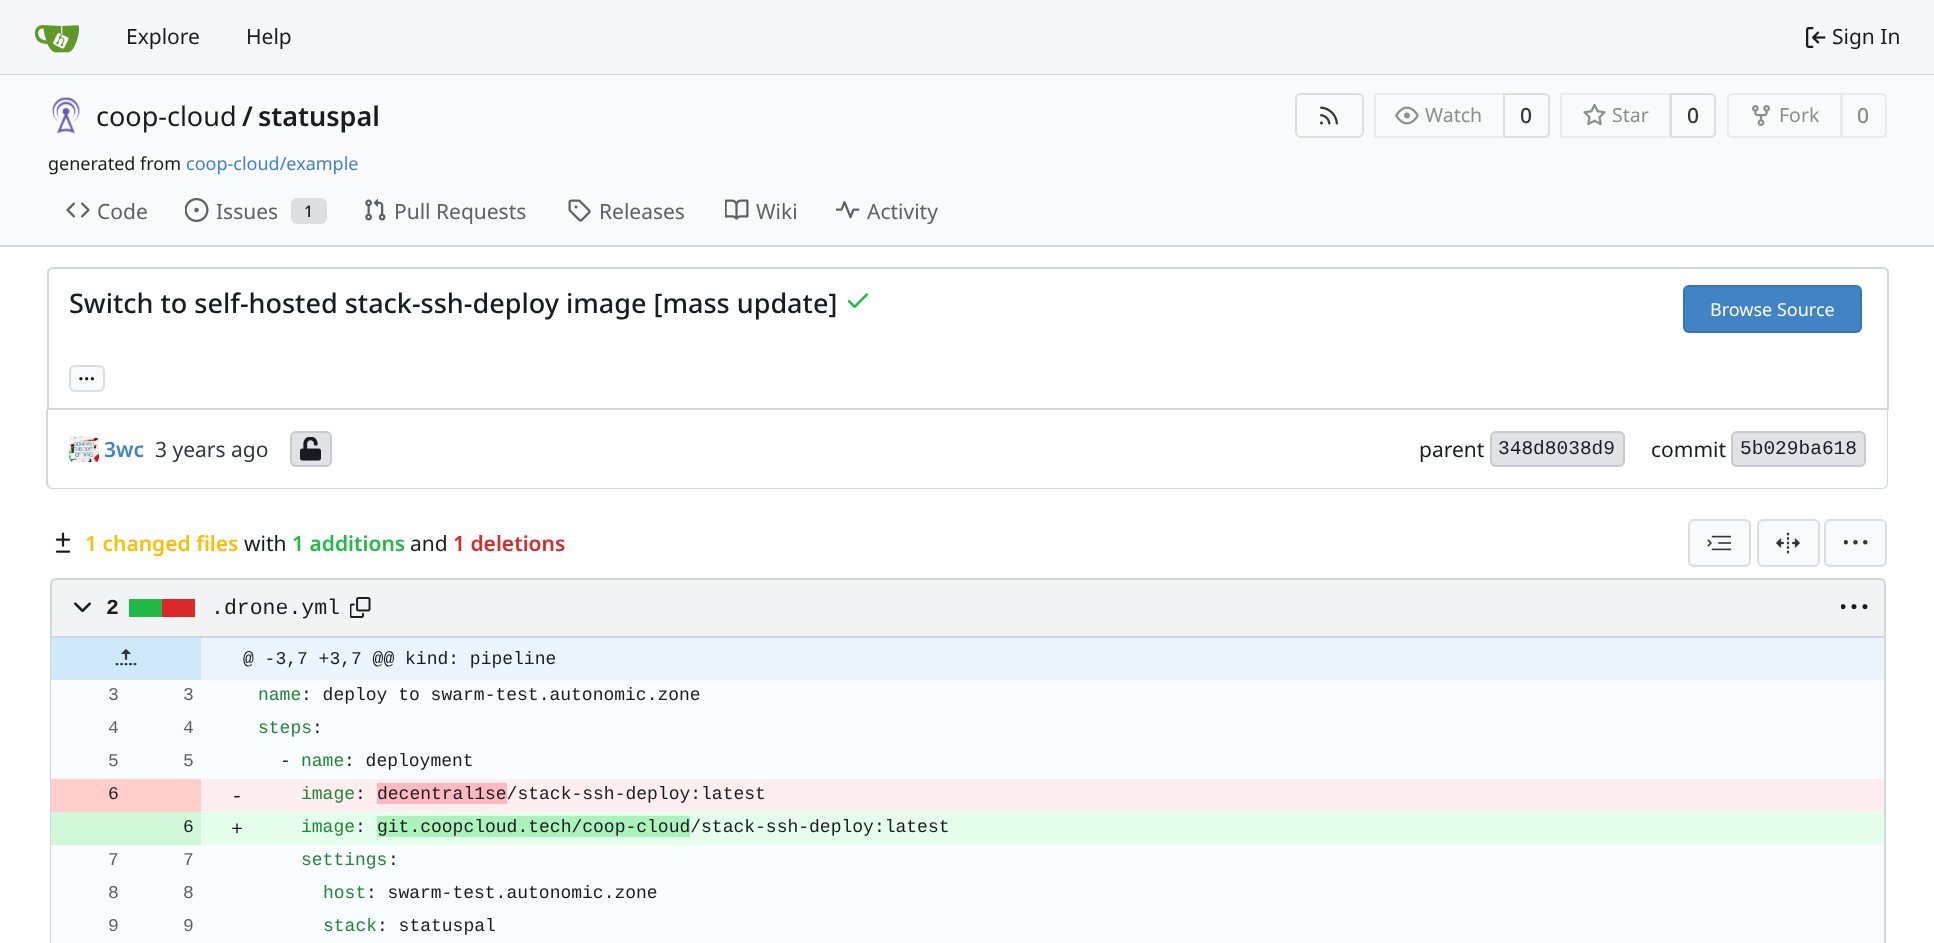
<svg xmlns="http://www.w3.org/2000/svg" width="1934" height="943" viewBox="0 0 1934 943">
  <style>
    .t1 { font: 21px Noto Sans; fill: #181c21; }
    .t2 { font: 27px Noto Sans; fill: #181c21; }
    .t3 { font: 600 27px Noto Sans; fill: #181c21; }
    .t4 { font: 19.5px Noto Sans; fill: #8a8e91; }
    .t5 { font: 500 21px Noto Sans; fill: #30363b; }
    .t6 { font: 500 21px Noto Sans; fill: #8a8e91; }
    .t7 { font: 18px Noto Sans; fill: #181c21; }
    .t8 { font: 18px Noto Sans; fill: #4183c4; }
    .t9 { font: 21px Noto Sans; fill: #5b6167; }
    .t10 { font: 500 16px Noto Sans; fill: #181c21; }
    .t11 { font: 500 27px Noto Sans; fill: #181c21; }
    .t12 { font: 18px Noto Sans; fill: #fff; }
    .t13 { font: 600 21px Noto Sans; fill: #181c21; }
    .t14 { font: 600 21px Noto Sans; fill: #4183c4; }
    .t15 { font: 21px Noto Sans; fill: #30363b; }
    .t16 { font: 19.5px Liberation Mono; fill: #181c21; }
    .t17 { font: 600 21px Noto Sans; fill: #fbbd08; }
    .t18 { font: 600 21px Noto Sans; fill: #21ba45; }
    .t19 { font: 600 21px Noto Sans; fill: #db2828; }
    .t20 { font: bold 21.5px Liberation Mono; fill: #181c21; }
    .t21 { font: 21.5px Liberation Mono; fill: #181c21; }
    .t22 { font: 18px Liberation Mono; fill: #181c21; }
    .t23 { font: 18px Liberation Mono; fill: #5b6167; }
    .t24 { font: 18px Liberation Mono; fill: #22863a; }
    .t25 { font: 20px Liberation Mono; fill: #181c21; }
  </style>
  <rect width="100%" height="100%" fill="#fff"/>
  <rect x="0" y="0" width="1934" height="74" fill="#f6f7fa"/>
  <rect x="0" y="74" width="1934" height="1" fill="#d0d7de"/>
  <image x="35" y="25" width="45" height="28" href="images/1.png"/>
  <text x="126" y="44" class="t1">Explore</text>
  <text x="246" y="44" class="t1">Help</text>
  <image x="1806" y="27" width="20" height="21" href="images/2.png"/>
  <text x="1832" y="44" class="t1">Sign In</text>
  <rect x="0" y="75" width="1934" height="170" fill="#f9fafb"/>
  <image x="52" y="97" width="28" height="37" href="images/3.png"/>
  <text x="96" y="126" class="t2">coop-cloud</text>
  <text x="242" y="126" class="t3">/</text>
  <text x="258" y="126" class="t3">statuspal</text>
  <rect x="1296" y="94" width="67" height="43" rx="5" fill="none" stroke="#dddee1" stroke-width="2"/>
  <image x="1320" y="106" width="18" height="19" href="images/4.png"/>
  <path d="M1504 94H1544C1547 94 1549 96 1549 99V132C1549 135 1547 137 1544 137H1504Z" fill="none" stroke="#dddee1" stroke-width="2"/>
  <path d="M1380 93H1505V138H1380C1376.5 138 1374 135.5 1374 132V99C1374 95.5 1376.5 93 1380 93Z" fill="#f8f9fb8c"/>
  <rect x="1375" y="94" width="129" height="43" fill="none" stroke="#0000170f" stroke-width="2"/>
  <image x="1395" y="106" width="24" height="19" href="images/5.png"/>
  <text x="1425" y="122" class="t4">Watch</text>
  <text x="1520" y="123" class="t5">0</text>
  <path d="M1671 94H1710C1713 94 1715 96 1715 99V132C1715 135 1713 137 1710 137H1671Z" fill="none" stroke="#dddee1" stroke-width="2"/>
  <path d="M1566 93H1671V138H1566C1562.5 138 1560 135.5 1560 132V99C1560 95.5 1562.5 93 1566 93Z" fill="#f8f9fb8c"/>
  <rect x="1561" y="94" width="109" height="43" fill="none" stroke="#0000170f" stroke-width="2"/>
  <image x="1583" y="104" width="23" height="22" href="images/6.png"/>
  <text x="1612" y="122" class="t4">Star</text>
  <text x="1687" y="123" class="t5">0</text>
  <path d="M1733 94H1841V137H1733C1730 137 1728 135 1728 132V99C1728 96 1730 94 1733 94Z" fill="none" stroke="#e9eaed" stroke-width="2"/>
  <image x="1752" y="105" width="18" height="21" href="images/7.png"/>
  <text x="1779" y="122" class="t4">Fork</text>
  <path d="M1842 94H1881C1884 94 1886 96 1886 99V132C1886 135 1884 137 1881 137H1842Z" fill="#f8f9fb" stroke="#e9eaed" stroke-width="2"/>
  <text x="1857" y="123" class="t6">0</text>
  <text x="48" y="170" class="t7">generated from</text>
  <text x="186" y="170" class="t8">coop-cloud/example</text>
  <image x="66" y="202" width="24" height="16" href="images/8.png"/>
  <text x="97" y="219" class="t9">Code</text>
  <image x="185" y="198" width="24" height="24" href="images/9.png"/>
  <text x="216" y="219" class="t9">Issues</text>
  <rect x="291" y="198" width="36" height="26" rx="6" fill="#dbdfe2"/>
  <text x="304" y="217" class="t10">1</text>
  <image x="365" y="199" width="21" height="22" href="images/10.png"/>
  <text x="394" y="219" class="t9">Pull Requests</text>
  <image x="568" y="199" width="23" height="23" href="images/11.png"/>
  <text x="599" y="219" class="t9">Releases</text>
  <image x="725" y="199" width="24" height="21" href="images/12.png"/>
  <text x="756" y="219" class="t9">Wiki</text>
  <image x="836" y="201" width="24" height="18" href="images/13.png"/>
  <text x="867" y="219" class="t9">Activity</text>
  <rect x="0" y="245" width="1934" height="2" fill="#d0d7de"/>
  <path d="M53 268H1883C1886 268 1888 270 1888 273V409H48V273C48 270 50 268 53 268Z" fill="none" stroke="#d0d7de" stroke-width="2"/>
  <text x="69" y="313" class="t11">Switch to self-hosted stack-ssh-deploy image [mass update]</text>
  <image x="847" y="293" width="22" height="15" href="images/14.png"/>
  <rect x="1683" y="285" width="179" height="48" rx="6" fill="#4183c4"/>
  <rect x="1684" y="286" width="177" height="46" rx="5" fill="none" stroke="#0000171c" stroke-width="2"/>
  <text x="1710" y="316" class="t12">Browse Source</text>
  <rect x="70" y="366" width="34" height="25" rx="5" fill="#f8f9fb" stroke="#dcdde1" stroke-width="2"/>
  <text x="78" y="380" class="t13">...</text>
  <path d="M46 410H1888V483C1888 486 1886 489 1882 489H52C49 489 46 486 46 483ZM48 410H1887V483C1887 485 1885 488 1882 488H52C50 488 48 485 48 483Z" fill="#d0d7de" fill-rule="evenodd"/>
  <image x="69" y="436" width="30" height="26" href="images/15.png"/>
  <text x="104" y="457" class="t14">3wc</text>
  <text x="155" y="457" class="t15">3 years ago</text>
  <rect x="290" y="431" width="42" height="36" rx="6" fill="#e0e2e5"/>
  <rect x="291" y="432" width="40" height="34" rx="5" fill="none" stroke="#0000171c" stroke-width="2"/>
  <image x="300" y="437" width="21" height="24" href="images/16.png"/>
  <text x="1419" y="457" class="t1">parent</text>
  <rect x="1490" y="431" width="135" height="36" rx="6" fill="#e0e2e5"/>
  <rect x="1491" y="432" width="133" height="34" rx="5" fill="none" stroke="#0000171c" stroke-width="2"/>
  <text x="1498" y="454" class="t16">348d8038d9</text>
  <text x="1651" y="457" class="t1">commit</text>
  <rect x="1731" y="431" width="135" height="36" rx="6" fill="#e0e2e5"/>
  <rect x="1732" y="432" width="133" height="34" rx="5" fill="none" stroke="#0000171c" stroke-width="2"/>
  <text x="1740" y="454" class="t16">5b029ba618</text>
  <image x="55" y="532" width="16" height="21" href="images/17.png"/>
  <text x="85" y="551" class="t17">1 changed files</text>
  <text x="244" y="551" class="t1">with</text>
  <text x="292" y="551" class="t18">1 additions</text>
  <text x="410" y="551" class="t1">and</text>
  <text x="453" y="551" class="t19">1 deletions</text>
  <rect x="1689" y="520" width="61" height="46" rx="5" fill="#f8f9fb" stroke="#dcdde1" stroke-width="2"/>
  <image x="1707" y="535" width="24" height="16" href="images/18.png"/>
  <rect x="1758" y="520" width="61" height="46" rx="5" fill="#f8f9fb" stroke="#dcdde1" stroke-width="2"/>
  <image x="1776" y="532" width="24" height="22" href="images/19.png"/>
  <rect x="1825" y="520" width="61" height="46" rx="5" fill="#f8f9fb" stroke="#dcdde1" stroke-width="2"/>
  <image x="1844" y="540" width="24" height="5" href="images/20.png"/>
  <path d="M56 579H1880C1883 579 1885 581 1885 584V637H51V584C51 581 53 579 56 579Z" fill="#f1f3f5" stroke="#d0d7de" stroke-width="2"/>
  <image x="74" y="602" width="17" height="11" href="images/21.png"/>
  <text x="106" y="614" class="t20">2</text>
  <rect x="162" y="599" width="33" height="18" fill="#db2828"/>
  <rect x="129" y="599" width="33" height="18" fill="#21ba45"/>
  <text x="211" y="614" class="t21">.drone.yml</text>
  <image x="350" y="597" width="21" height="21" href="images/22.png"/>
  <image x="1841" y="604" width="27" height="6" href="images/23.png"/>
  <path d="M50 638H1886V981C1886 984 1883 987 1880 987H56C52 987 50 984 50 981ZM51 638H1884V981C1884 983 1882 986 1880 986H56C53 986 51 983 51 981Z" fill="#d0d7de" fill-rule="evenodd"/>
  <rect x="51" y="680" width="1833" height="263" fill="#fafdff"/>
  <rect x="201" y="638" width="1683" height="42" fill="#ecf5fd"/>
  <rect x="51" y="638" width="150" height="42" fill="#cfe8fa"/>
  <image x="115" y="649" width="22" height="17" href="images/24.png"/>
  <text x="243" y="664" class="t22">@ -3,7 +3,7 @@ kind: pipeline</text>
  <text x="108" y="700" class="t23">3</text>
  <text x="183" y="700" class="t23">3</text>
  <text x="258" y="700" class="t24">name</text>
  <text x="301" y="700" class="t22">: deploy to swarm-test.autonomic.zone</text>
  <text x="108" y="733" class="t23">4</text>
  <text x="183" y="733" class="t23">4</text>
  <text x="258" y="733" class="t24">steps</text>
  <text x="312" y="733" class="t22">:</text>
  <text x="108" y="766" class="t23">5</text>
  <text x="183" y="766" class="t23">5</text>
  <text x="280" y="766" class="t22">-</text>
  <text x="301" y="766" class="t24">name</text>
  <text x="344" y="766" class="t22">: deployment</text>
  <rect x="201" y="779" width="1683" height="33" fill="#ffeef0"/>
  <rect x="51" y="779" width="150" height="33" fill="#ffcecb"/>
  <text x="108" y="799" class="t22">6</text>
  <text x="231" y="802" class="t25">-</text>
  <text x="301" y="799" class="t24">image</text>
  <text x="355" y="799" class="t22">:</text>
  <rect x="377" y="783" width="130" height="21" fill="#fdb8c0"/>
  <text x="377" y="799" class="t22">decentral1se/stack-ssh-deploy:latest</text>
  <rect x="201" y="812" width="1683" height="33" fill="#e6ffed"/>
  <rect x="51" y="812" width="150" height="33" fill="#d1f8d9"/>
  <text x="301" y="832" class="t24">image</text>
  <text x="355" y="832" class="t22">:</text>
  <rect x="377" y="816" width="313" height="21" fill="#acf2bd"/>
  <text x="377" y="832" class="t22">git.coopcloud.tech/coop-cloud/stack-ssh-deploy:latest</text>
  <text x="183" y="832" class="t22">6</text>
  <text x="231" y="835" class="t25">+</text>
  <text x="108" y="865" class="t23">7</text>
  <text x="183" y="865" class="t23">7</text>
  <text x="301" y="865" class="t24">settings</text>
  <text x="388" y="865" class="t22">:</text>
  <text x="108" y="898" class="t23">8</text>
  <text x="183" y="898" class="t23">8</text>
  <text x="323" y="898" class="t24">host</text>
  <text x="366" y="898" class="t22">: swarm-test.autonomic.zone</text>
  <text x="108" y="931" class="t23">9</text>
  <text x="183" y="931" class="t23">9</text>
  <text x="323" y="931" class="t24">stack</text>
  <text x="377" y="931" class="t22">: statuspal</text>
</svg>
